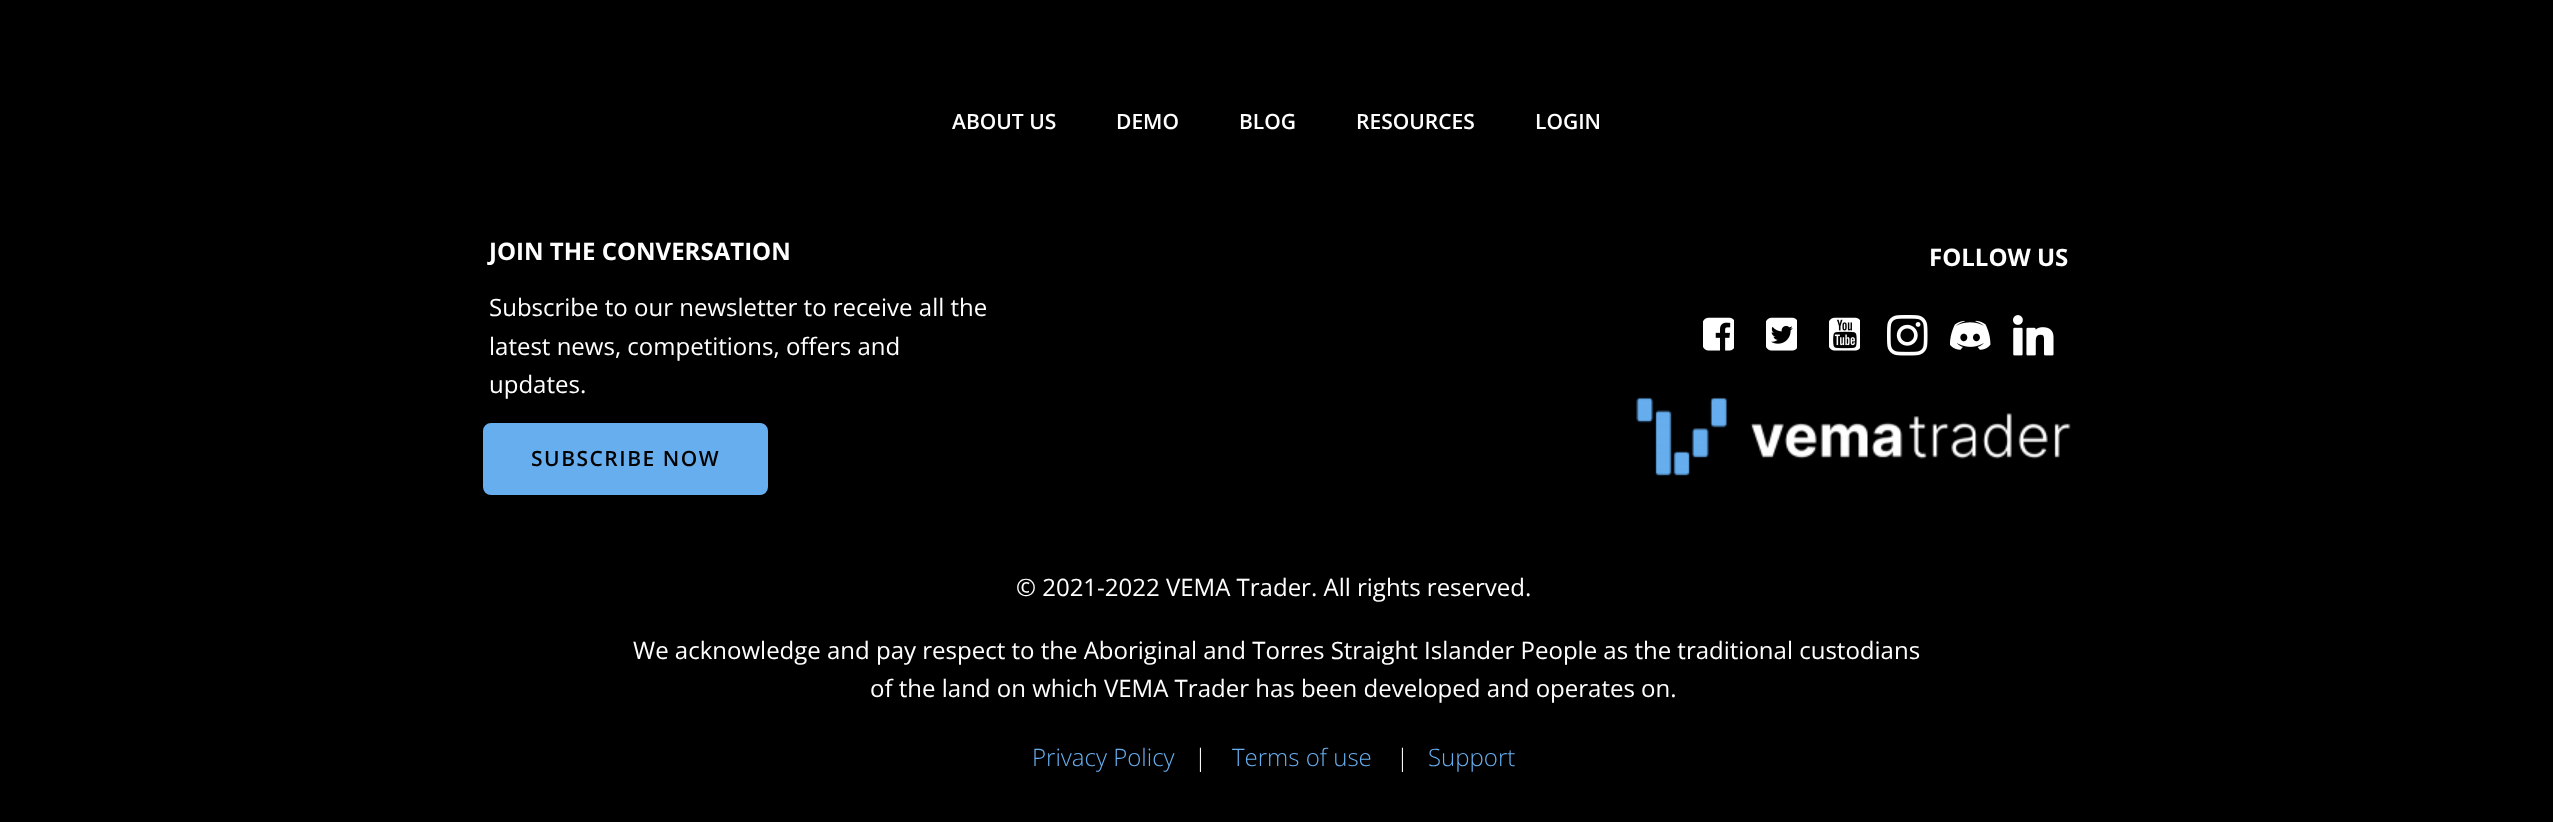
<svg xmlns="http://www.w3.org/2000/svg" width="2553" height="822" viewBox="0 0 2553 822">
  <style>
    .t1 { font: 600 21px Open Sans; fill: #fff; }
    .t2 { font: bold 24px Open Sans; fill: #fff; }
    .t3 { font: 24px Open Sans; fill: #fff; }
    .t4 { font: 600 21px Open Sans; letter-spacing: 1.5px; fill: #000; }
    .t5 { font: 300 24px Open Sans; fill: #67aeee; }
    .t6 { font: 300 24px Open Sans; fill: #fff; }
  </style>
  <rect width="100%" height="100%" fill="#000"/>
  <text x="952" y="129" class="t1">ABOUT US</text>
  <text x="1116" y="129" class="t1">DEMO</text>
  <text x="1239" y="129" class="t1">BLOG</text>
  <text x="1356" y="129" class="t1">RESOURCES</text>
  <text x="1535" y="129" class="t1">LOGIN</text>
  <text x="489" y="260" class="t2">JOIN THE CONVERSATION</text>
  <text x="489" y="316" class="t3">Subscribe to our newsletter to receive all the</text>
  <text x="489" y="355" class="t3">latest news, competitions, offers and</text>
  <text x="489" y="393" class="t3">updates.</text>
  <rect x="484.5" y="424.5" width="282" height="69" rx="6.5" fill="#67aeee" stroke="#67aeee" stroke-width="3"/>
  <text x="531" y="466" class="t4">SUBSCRIBE NOW</text>
  <text x="1929" y="266" class="t2">FOLLOW US</text>
  <image x="1703" y="317" width="31" height="34" href="images/1.png"/>
  <image x="1766" y="317" width="31" height="34" href="images/2.png"/>
  <image x="1829" y="317" width="31" height="34" href="images/3.png"/>
  <image x="1887" y="315" width="41" height="41" href="images/4.png"/>
  <image x="1950" y="320" width="41" height="30" href="images/5.png"/>
  <image x="2013" y="315" width="41" height="41" href="images/6.png"/>
  <image x="1636" y="397" width="435" height="79" href="images/7.png"/>
  <text x="1016" y="596" class="t3">© 2021-2022 VEMA Trader. All rights reserved.</text>
  <text x="633" y="659" class="t3">We acknowledge and pay respect to the Aboriginal and Torres Straight Islander People as the traditional custodians</text>
  <text x="870" y="697" class="t3">of the land on which VEMA Trader has been developed and operates on.</text>
  <text x="1032" y="766" class="t5">Privacy Policy</text>
  <text x="1194" y="766" class="t6">|</text>
  <text x="1232" y="766" class="t5">Terms of use</text>
  <text x="1396" y="766" class="t6">|</text>
  <text x="1428" y="766" class="t5">Support</text>
</svg>
